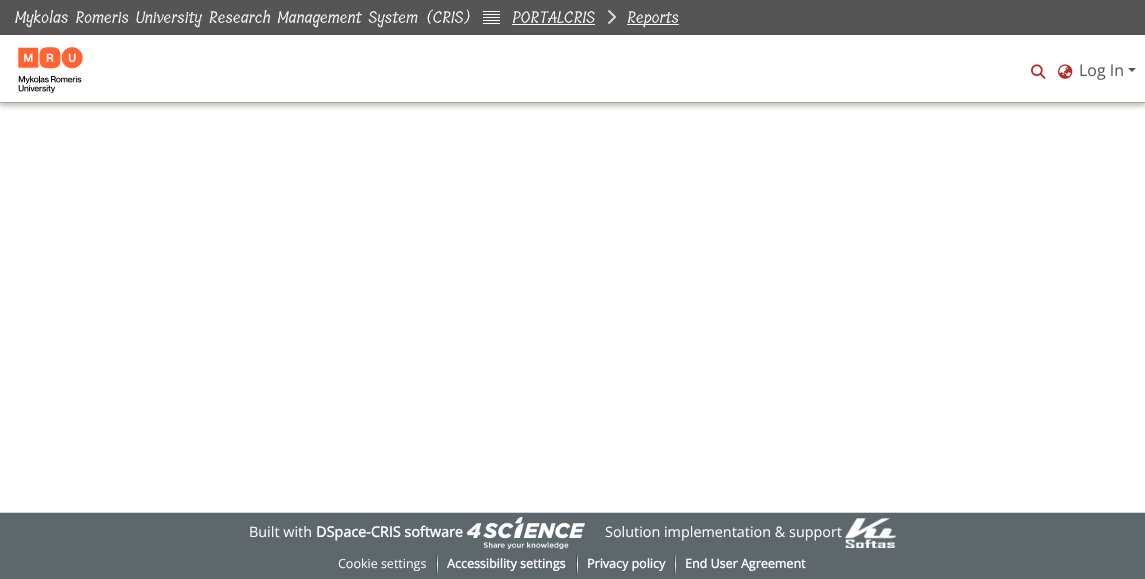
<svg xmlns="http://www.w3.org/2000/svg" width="1145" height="579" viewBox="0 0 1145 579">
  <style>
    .t1 { font: 16px Tillana; fill: #fff; }
    .t2 { font: 16px Open Sans; fill: #555; }
    .t3 { font: 14.4px Open Sans; fill: #fff; }
    .t4 { font: bold 14.4px Open Sans; fill: #fff; }
    .t5 { font: 12.5px Open Sans; fill: #fff; }
    .t6 { font: bold 12.5px Open Sans; fill: #fff; }
  </style>
  <defs>
    <clipPath id="clip1"><rect x="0" y="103" width="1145" height="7"/></clipPath>
  </defs>
  <rect width="100%" height="100%" fill="#fff"/>
  <g clip-path="url(#clip1)">
    <rect x="-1" y="0" width="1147" height="105" fill="#68574480" filter="blur(3px)"/>
  </g>
  <rect x="0" y="102" width="1145" height="1" fill="#aaa"/>
  <rect x="0" y="0" width="1145" height="35" fill="#555"/>
  <text x="15" y="23" class="t1">Mykolas Romeris University Research Management System (CRIS)</text>
  <rect x="483" y="11" width="17" height="1" fill="#fff"/>
  <rect x="483" y="14" width="17" height="1" fill="#fff"/>
  <rect x="483" y="17" width="17" height="1" fill="#fff"/>
  <rect x="483" y="20" width="17" height="1" fill="#fff"/>
  <rect x="483" y="23" width="17" height="1" fill="#fff"/>
  <text x="512" y="23" class="t1">PORTALCRIS</text>
  <rect x="512" y="24" width="83" height="1" fill="#fff"/>
  <image x="608" y="10" width="8" height="14" href="images/1.png"/>
  <rect x="627" y="24" width="52" height="1" fill="#fff"/>
  <text x="627" y="23" class="t1">Reports</text>
  <image x="18" y="47" width="65" height="46" href="images/2.png"/>
  <image x="1031" y="64" width="15" height="15" href="images/3.png"/>
  <image x="1058" y="64" width="15" height="15" href="images/4.png"/>
  <text x="1079" y="76" class="t2">Log In</text>
  <path d="M1128 68H1136L1132 72Z" fill="#555"/>
  <rect x="0" y="513" width="1145" height="66" fill="#5d676c"/>
  <rect x="0" y="512" width="1145" height="1" fill="#ced4da"/>
  <text x="249" y="537" class="t3">Built with</text>
  <text x="316" y="537" class="t4">DSpace-CRIS software</text>
  <image x="467" y="517" width="118" height="32" href="images/5.png"/>
  <text x="605" y="537" class="t3">Solution implementation &amp; support</text>
  <image x="845" y="518" width="51" height="30" href="images/6.png"/>
  <image x="437" y="554" width="1" height="21" href="images/7.png"/>
  <text x="338" y="568" class="t5">Cookie settings</text>
  <rect x="436" y="554" width="1" height="21" fill="#495057"/>
  <image x="577" y="554" width="1" height="21" href="images/8.png"/>
  <text x="447" y="568" class="t6">Accessibility settings</text>
  <rect x="576" y="554" width="1" height="21" fill="#495057"/>
  <image x="675" y="554" width="1" height="21" href="images/7.png"/>
  <text x="587" y="568" class="t6">Privacy policy</text>
  <rect x="674" y="554" width="1" height="21" fill="#495057"/>
  <text x="685" y="568" class="t6">End User Agreement</text>
</svg>
